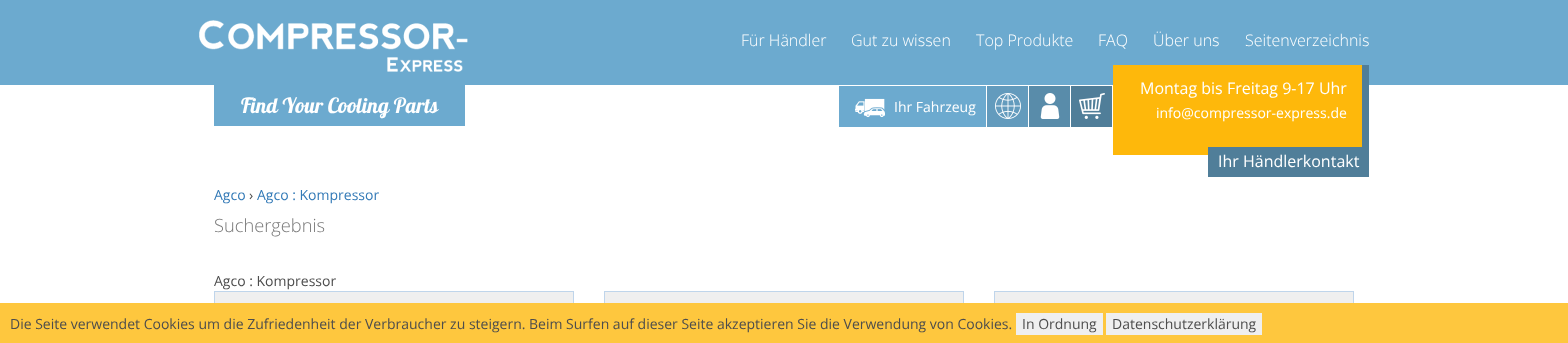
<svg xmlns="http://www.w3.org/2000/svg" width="1568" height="343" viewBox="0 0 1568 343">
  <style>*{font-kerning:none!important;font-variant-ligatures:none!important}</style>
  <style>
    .t1 { font: 300 16px Open Sans; fill: #fff; }
    .t2 { font: 21px Lobster; fill: #fff; }
    .t3 { font: 14px Open Sans; fill: #fff; }
    .t4 { font: 16px Open Sans; fill: #fff; }
    .t5 { font: 14px Open Sans; fill: #337ab7; }
    .t6 { font: 14px Open Sans; fill: #4d4d4d; }
    .t7 { font: 300 18.25px Open Sans; fill: #777; }
  </style>
  <rect width="100%" height="100%" fill="#fff"/>
  <rect x="0" y="0" width="1568" height="85" fill="#6caacf"/>
  <text x="741" y="46" class="t1">Für Händler</text>
  <text x="851" y="46" class="t1">Gut zu wissen</text>
  <text x="976" y="46" class="t1">Top Produkte</text>
  <text x="1098" y="46" class="t1">FAQ</text>
  <text x="1153" y="46" class="t1">Über uns</text>
  <text x="1245" y="46" class="t1">Seitenverzeichnis</text>
  <image x="199" y="20" width="269" height="52" href="images/1.png"/>
  <rect x="214" y="85" width="251" height="41" fill="#6caacf"/>
  <text x="241" y="113" class="t2">Find Your Cooling Parts</text>
  <rect x="839" y="86" width="147" height="41" fill="#6caacf"/>
  <image x="855" y="98" width="30" height="20" href="images/2.png"/>
  <text x="894" y="112" class="t3">Ihr Fahrzeug</text>
  <rect x="987" y="86" width="41" height="41" fill="#639bbd"/>
  <image x="995" y="93" width="26" height="26" href="images/3.png"/>
  <rect x="1029" y="86" width="41" height="41" fill="#598caa"/>
  <image x="1040" y="93" width="20" height="26" href="images/4.png"/>
  <rect x="1071" y="86" width="41" height="41" fill="#507e99"/>
  <image x="1079" y="93" width="26" height="26" href="images/5.png"/>
  <rect x="1113" y="65" width="249" height="90" fill="#feb80b"/>
  <rect x="1362" y="65" width="7" height="90" fill="#507e99"/>
  <text x="1140" y="94" class="t4">Montag bis Freitag 9-17 Uhr</text>
  <text x="1156" y="118" class="t3">info@compressor-express.de</text>
  <rect x="1208" y="147" width="161" height="30" fill="#507e99"/>
  <text x="1218" y="167" class="t4">Ihr Händlerkontakt</text>
  <text x="214" y="200" class="t5">Agco</text>
  <text x="249" y="200" class="t6">›</text>
  <text x="257" y="200" class="t5">Agco : Kompressor</text>
  <text x="214" y="232" class="t7">Suchergebnis</text>
  <text x="214" y="286" class="t6">Agco : Kompressor</text>
  <rect x="214.5" y="291.5" width="359" height="31" fill="none" stroke="#bfd5eb"/>
  <rect x="215" y="292" width="358" height="11" fill="#efefef"/>
  <rect x="604.5" y="291.5" width="359" height="31" fill="none" stroke="#bfd5eb"/>
  <rect x="605" y="292" width="358" height="11" fill="#efefef"/>
  <rect x="994.5" y="291.5" width="359" height="31" fill="none" stroke="#bfd5eb"/>
  <rect x="995" y="292" width="358" height="11" fill="#efefef"/>
  <rect x="0" y="303" width="1568" height="40" fill="#fec73e"/>
  <text x="10" y="329" class="t6">Die Seite verwendet Cookies um die Zufriedenheit der Verbraucher zu steigern. Beim Surfen auf dieser Seite akzeptieren Sie die Verwendung von Cookies.</text>
  <rect x="1016" y="313" width="87" height="22" fill="#efefef"/>
  <text x="1022" y="329" class="t6">In Ordnung</text>
  <rect x="1106" y="313" width="156" height="22" fill="#efefef"/>
  <text x="1112" y="329" class="t6">Datenschutzerklärung</text>
</svg>
